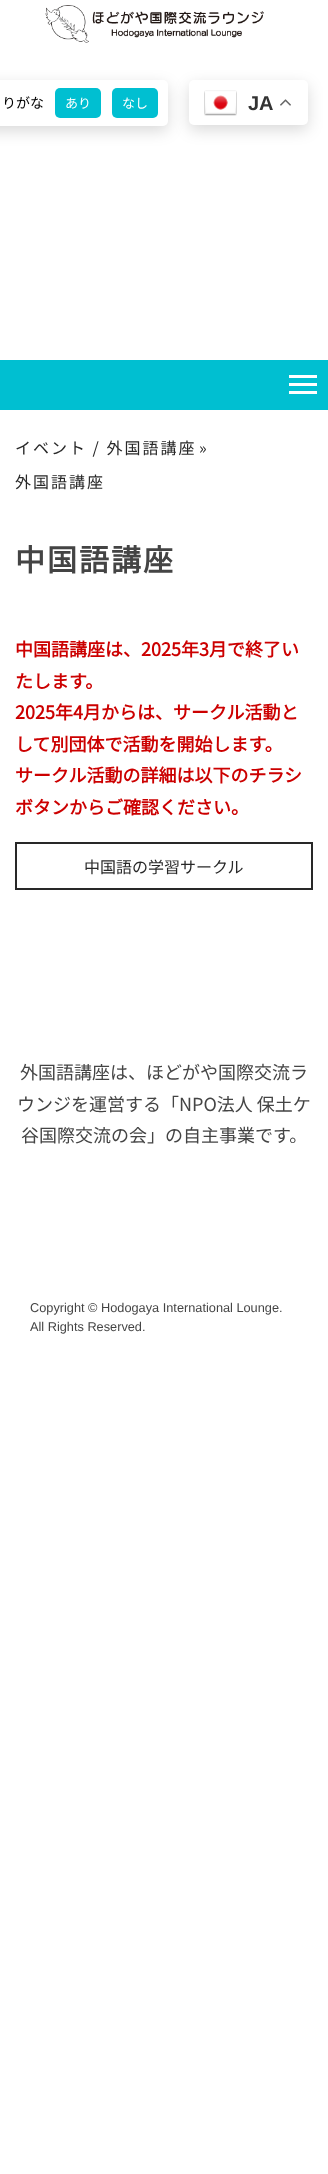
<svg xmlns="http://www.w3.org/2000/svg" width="328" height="2174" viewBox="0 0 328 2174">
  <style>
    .t1 { font: 100 14px Noto Sans JP; fill: #000; }
    .t2 { font: 100 13px Noto Sans JP; fill: #fff; }
    .t3 { font: bold 20px Liberation Sans; fill: #333; }
    .t4 { font: 12.75px Liberation Sans; fill: #444; }
    .t5 { font: 100 16px Noto Sans JP; letter-spacing: 2px; fill: #282828; }
    .t6 { font: bold 30px Noto Sans JP; letter-spacing: 2px; fill: #444; }
    .t7 { font: bold 18px Noto Sans JP; fill: #c00; }
    .t8 { font: 100 16px Noto Sans JP; fill: #282828; }
    .t9 { font: 100 18px Noto Sans JP; fill: #444; }
  </style>
  <rect width="100%" height="100%" fill="#fff"/>
  <image x="45" y="5" width="219" height="38" href="images/1.png"/>
  <rect x="-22" y="85" width="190" height="46" rx="5" fill="#00000026" filter="blur(7.5px)"/>
  <rect x="-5" y="80" width="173" height="46" rx="5" fill="#fff"/>
  <text x="2" y="108" class="t1">りがな</text>
  <rect x="55" y="88" width="46" height="30" rx="5" fill="#00bfd1"/>
  <text x="65" y="108" class="t2">あり</text>
  <rect x="112" y="88" width="46" height="30" rx="5" fill="#00bfd1"/>
  <text x="122" y="108" class="t2">なし</text>
  <rect x="189" y="85" width="119" height="45" rx="5" fill="#00000026" filter="blur(7.5px)"/>
  <rect x="189" y="80" width="119" height="45" rx="5" fill="#fff"/>
  <image x="204" y="90" width="33" height="26" href="images/2.png"/>
  <text x="248" y="110" class="t3">JA</text>
  <image x="280" y="99" width="11" height="7" href="images/3.png"/>
  <text x="30" y="1312" class="t4">Copyright © Hodogaya International Lounge.</text>
  <text x="30" y="1331" class="t4">All Rights Reserved.</text>
  <rect x="0" y="360" width="328" height="50" fill="#00bfd1"/>
  <rect x="289" y="383" width="28" height="3" fill="#fff"/>
  <rect x="289" y="375" width="28" height="3" fill="#fff"/>
  <rect x="289" y="391" width="28" height="3" fill="#fff"/>
  <text x="15" y="454" class="t5">イベント / 外国語講座</text>
  <text x="199" y="454" class="t5">»</text>
  <text x="15" y="488" class="t5">外国語講座</text>
  <text x="15" y="571" class="t6">中国語講座</text>
  <text x="15" y="656" class="t7">中国語講座は、2025年3月で終了い</text>
  <text x="15" y="688" class="t7">たします。</text>
  <text x="15" y="719" class="t7">2025年4月からは、サークル活動と</text>
  <text x="15" y="751" class="t7">して別団体で活動を開始します。</text>
  <text x="15" y="782" class="t7">サークル活動の詳細は以下のチラシ</text>
  <text x="15" y="814" class="t7">ボタンからご確認ください。</text>
  <rect x="16" y="843" width="296" height="46" fill="none" stroke="#282828" stroke-width="2"/>
  <text x="84" y="873" class="t8">中国語の学習サークル</text>
  <text x="20" y="1079" class="t9">外国語講座は、ほどがや国際交流ラ</text>
  <text x="17" y="1111" class="t9">ウンジを運営する「NPO法人 保土ケ</text>
  <text x="21" y="1142" class="t9">谷国際交流の会」の自主事業です。</text>
</svg>
